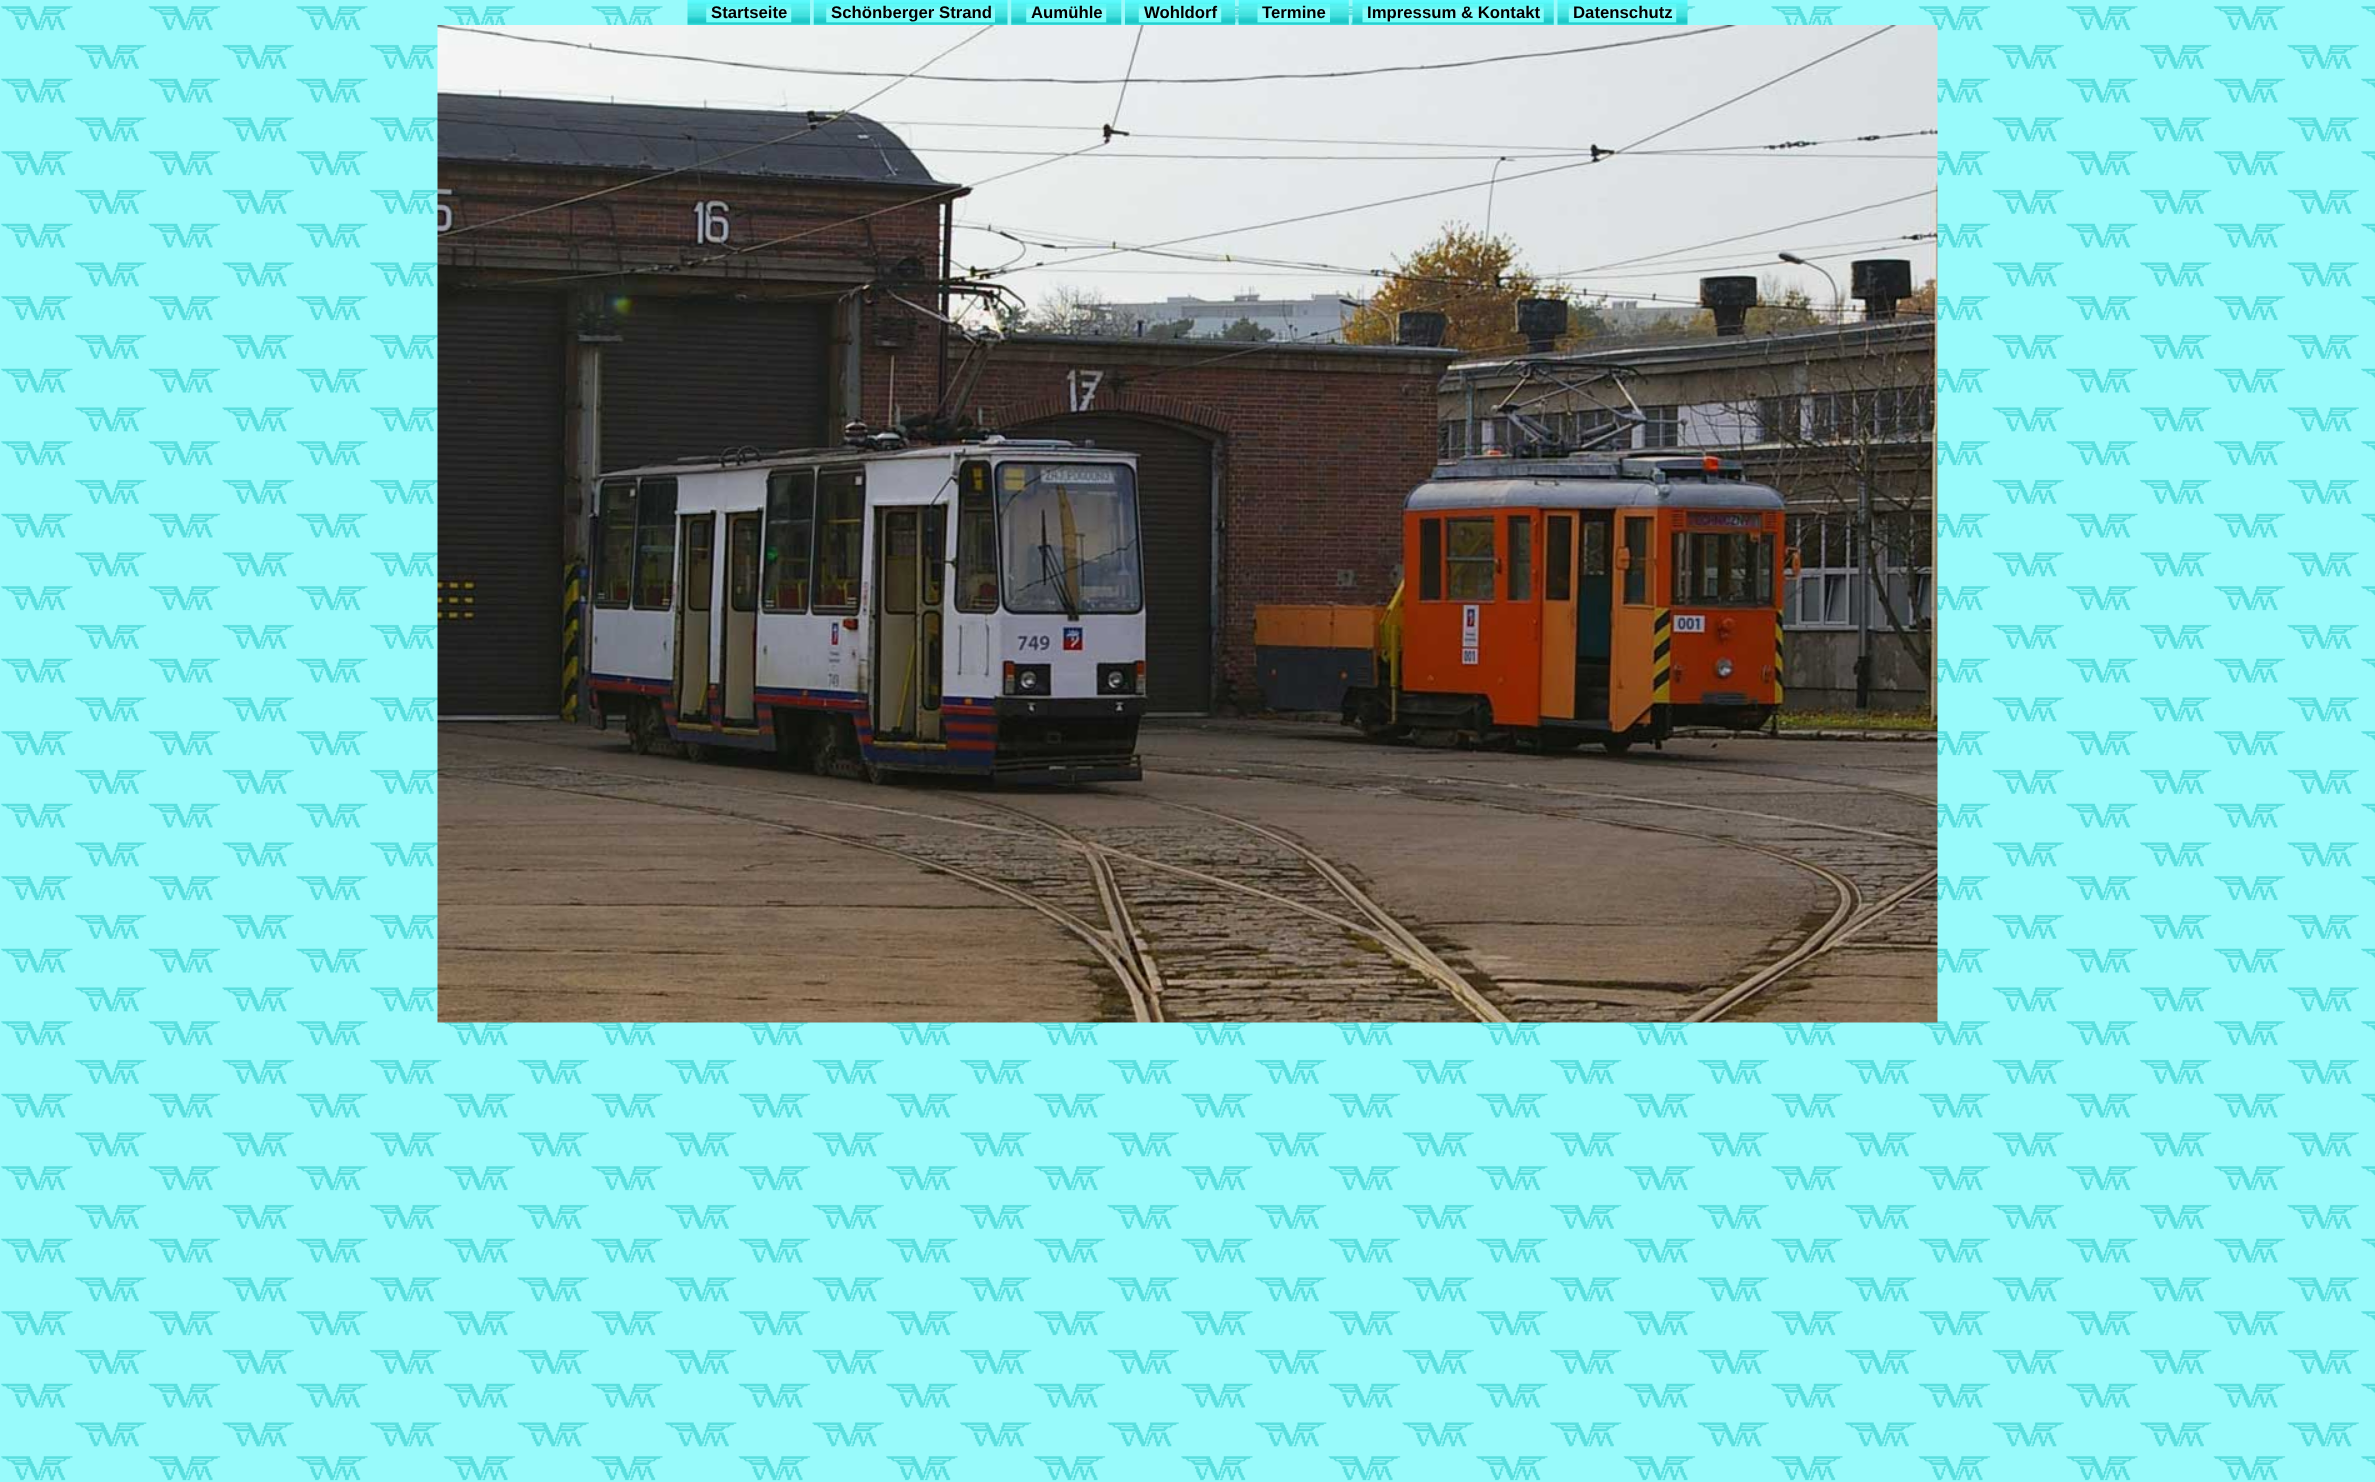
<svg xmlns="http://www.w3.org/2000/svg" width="2375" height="1482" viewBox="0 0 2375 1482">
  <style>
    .t1 { font: bold 16.75px Liberation Sans; fill: #000001; }
  </style>
  <rect width="100%" height="100%" fill="#fff"/>
  <image x="0" y="0" width="2375" height="1482" href="images/1.png"/>
  <image x="687" y="0" width="123" height="25" href="images/2.png"/>
  <image x="706" y="4" width="86" height="19" href="images/3.png"/>
  <text x="711" y="18" class="t1">Startseite</text>
  <image x="813" y="0" width="195" height="25" href="images/4.png"/>
  <image x="826" y="4" width="169" height="19" href="images/5.png"/>
  <text x="831" y="18" class="t1">Schönberger Strand</text>
  <image x="1011" y="0" width="111" height="25" href="images/6.png"/>
  <image x="1026" y="4" width="81" height="19" href="images/7.png"/>
  <text x="1031" y="18" class="t1">Aumühle</text>
  <image x="1125" y="0" width="110" height="25" href="images/8.png"/>
  <image x="1138" y="4" width="84" height="19" href="images/9.png"/>
  <text x="1144" y="18" class="t1">Wohldorf</text>
  <image x="1238" y="0" width="111" height="25" href="images/10.png"/>
  <image x="1257" y="4" width="73" height="19" href="images/11.png"/>
  <text x="1262" y="18" class="t1">Termine</text>
  <image x="1352" y="0" width="202" height="25" href="images/12.png"/>
  <image x="1362" y="4" width="182" height="19" href="images/13.png"/>
  <text x="1367" y="18" class="t1">Impressum &amp; Kontakt</text>
  <image x="1557" y="0" width="131" height="25" href="images/14.png"/>
  <image x="1568" y="4" width="109" height="19" href="images/15.png"/>
  <text x="1573" y="18" class="t1">Datenschutz</text>
  <image x="437" y="25" width="1501" height="998" href="images/16.png"/>
</svg>
